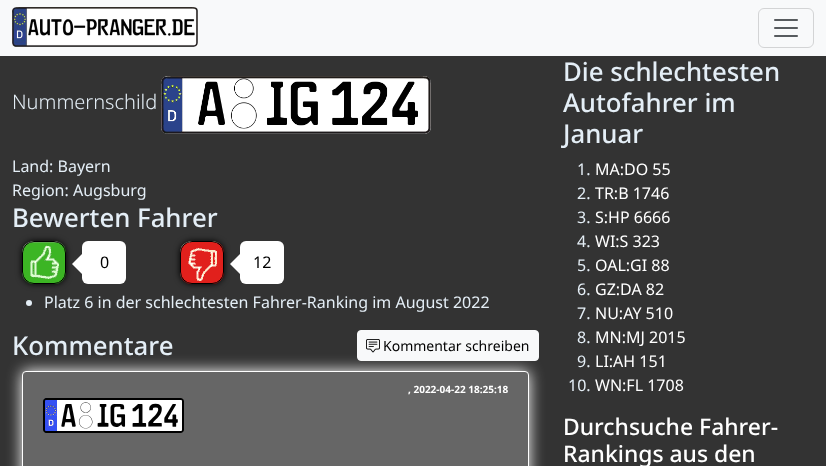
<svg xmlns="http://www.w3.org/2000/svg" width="826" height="466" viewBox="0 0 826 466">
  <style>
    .t1 { font: 300 20px Noto Sans; fill: #e4eef6; }
    .t2 { font: 16px Noto Sans; fill: #e4eef6; }
    .t3 { font: 500 25.75px Noto Sans; fill: #e4eef6; }
    .t4 { font: 16px Noto Sans; fill: #000; }
    .t5 { font: 14px Noto Sans; fill: #000; }
    .t6 { font: bold 10px Noto Sans; fill: #fff; }
    .t7 { font: 32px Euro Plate; fill: #000; }
    .t8 { font: 16px Noto Sans; fill: #fff; }
    .t9 { font: 500 22.9px Noto Sans; fill: #fff; }
  </style>
  <rect width="100%" height="100%" fill="#333"/>
  <rect x="0" y="0" width="826" height="56" fill="#f8f9fa"/>
  <image x="12" y="7" width="186" height="40" href="images/1.png"/>
  <rect x="758.5" y="8.5" width="55" height="39" rx="5.5" fill="none" stroke="#d3d4d5"/>
  <image x="774" y="19" width="24" height="18" href="images/2.png"/>
  <text x="12" y="109" class="t1">Nummernschild</text>
  <image x="161" y="76" width="270" height="58" href="images/3.png"/>
  <text x="12" y="172" class="t2">Land: Bayern</text>
  <text x="12" y="196" class="t2">Region: Augsburg</text>
  <text x="12" y="227" class="t3">Bewerten Fahrer</text>
  <rect x="22" y="241" width="44" height="43" rx="12" fill="#000" filter="blur(3px)"/>
  <image x="22" y="241" width="44" height="43" href="images/4.png"/>
  <rect x="22.5" y="241.5" width="43" height="42" rx="11.5" fill="none" stroke="#000"/>
  <path d="M82 254V274L72 264Z" fill="#fff"/>
  <rect x="82" y="241" width="44" height="43" rx="6" fill="#fff"/>
  <text x="100" y="268" class="t4">0</text>
  <rect x="180" y="241" width="44" height="43" rx="12" fill="#000" filter="blur(3px)"/>
  <image x="180" y="241" width="44" height="43" href="images/5.png"/>
  <rect x="180.5" y="241.5" width="43" height="42" rx="11.5" fill="none" stroke="#000"/>
  <path d="M240 254V274L230 264Z" fill="#fff"/>
  <rect x="240" y="241" width="44" height="43" rx="6" fill="#fff"/>
  <text x="253" y="268" class="t4">12</text>
  <circle cx="29" cy="303" r="3" fill="#e4eef6"/>
  <text x="44" y="308" class="t2">Platz 6 in der schlechtesten Fahrer-Ranking im August 2022</text>
  <rect x="22" y="371" width="507" height="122" rx="4" fill="#fff" filter="blur(7.5px)"/>
  <text x="12" y="355" class="t3">Kommentare</text>
  <rect x="357.5" y="330.5" width="181" height="30" rx="3.5" fill="#f8f9fa" stroke="#f8f9fa"/>
  <image x="366" y="339" width="14" height="14" href="images/6.png"/>
  <text x="383" y="351" class="t5">Kommentar schreiben</text>
  <rect x="22.5" y="371.5" width="506" height="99" rx="3.5" fill="#666" stroke="#fff"/>
  <text x="408" y="393" class="t6">, 2022-04-22 18:25:18</text>
  <rect x="43" y="398" width="141" height="35" rx="3" fill="#fff"/>
  <image x="45" y="398" width="12" height="35" href="images/7.png"/>
  <rect x="44" y="399" width="139" height="33" rx="2" fill="none" stroke="#000" stroke-width="2"/>
  <text x="60" y="427" class="t7">A:IG 124</text>
  <text x="563" y="81" class="t3">Die schlechtesten</text>
  <text x="563" y="112" class="t3">Autofahrer im</text>
  <text x="563" y="143" class="t3">Januar</text>
  <text x="577" y="175" class="t2">1.</text>
  <text x="595" y="175" class="t8">MA:DO 55</text>
  <text x="577" y="199" class="t2">2.</text>
  <text x="595" y="199" class="t8">TR:B 1746</text>
  <text x="577" y="223" class="t2">3.</text>
  <text x="595" y="223" class="t8">S:HP 6666</text>
  <text x="577" y="247" class="t2">4.</text>
  <text x="595" y="247" class="t8">WI:S 323</text>
  <text x="577" y="271" class="t2">5.</text>
  <text x="595" y="271" class="t8">OAL:GI 88</text>
  <text x="577" y="295" class="t2">6.</text>
  <text x="595" y="295" class="t8">GZ:DA 82</text>
  <text x="577" y="319" class="t2">7.</text>
  <text x="595" y="319" class="t8">NU:AY 510</text>
  <text x="577" y="343" class="t2">8.</text>
  <text x="595" y="343" class="t8">MN:MJ 2015</text>
  <text x="577" y="367" class="t2">9.</text>
  <text x="595" y="367" class="t8">LI:AH 151</text>
  <text x="568" y="391" class="t2">10.</text>
  <text x="595" y="391" class="t8">WN:FL 1708</text>
  <text x="563" y="435" class="t9">Durchsuche Fahrer-</text>
  <text x="563" y="462" class="t9">Rankings aus den</text>
</svg>
